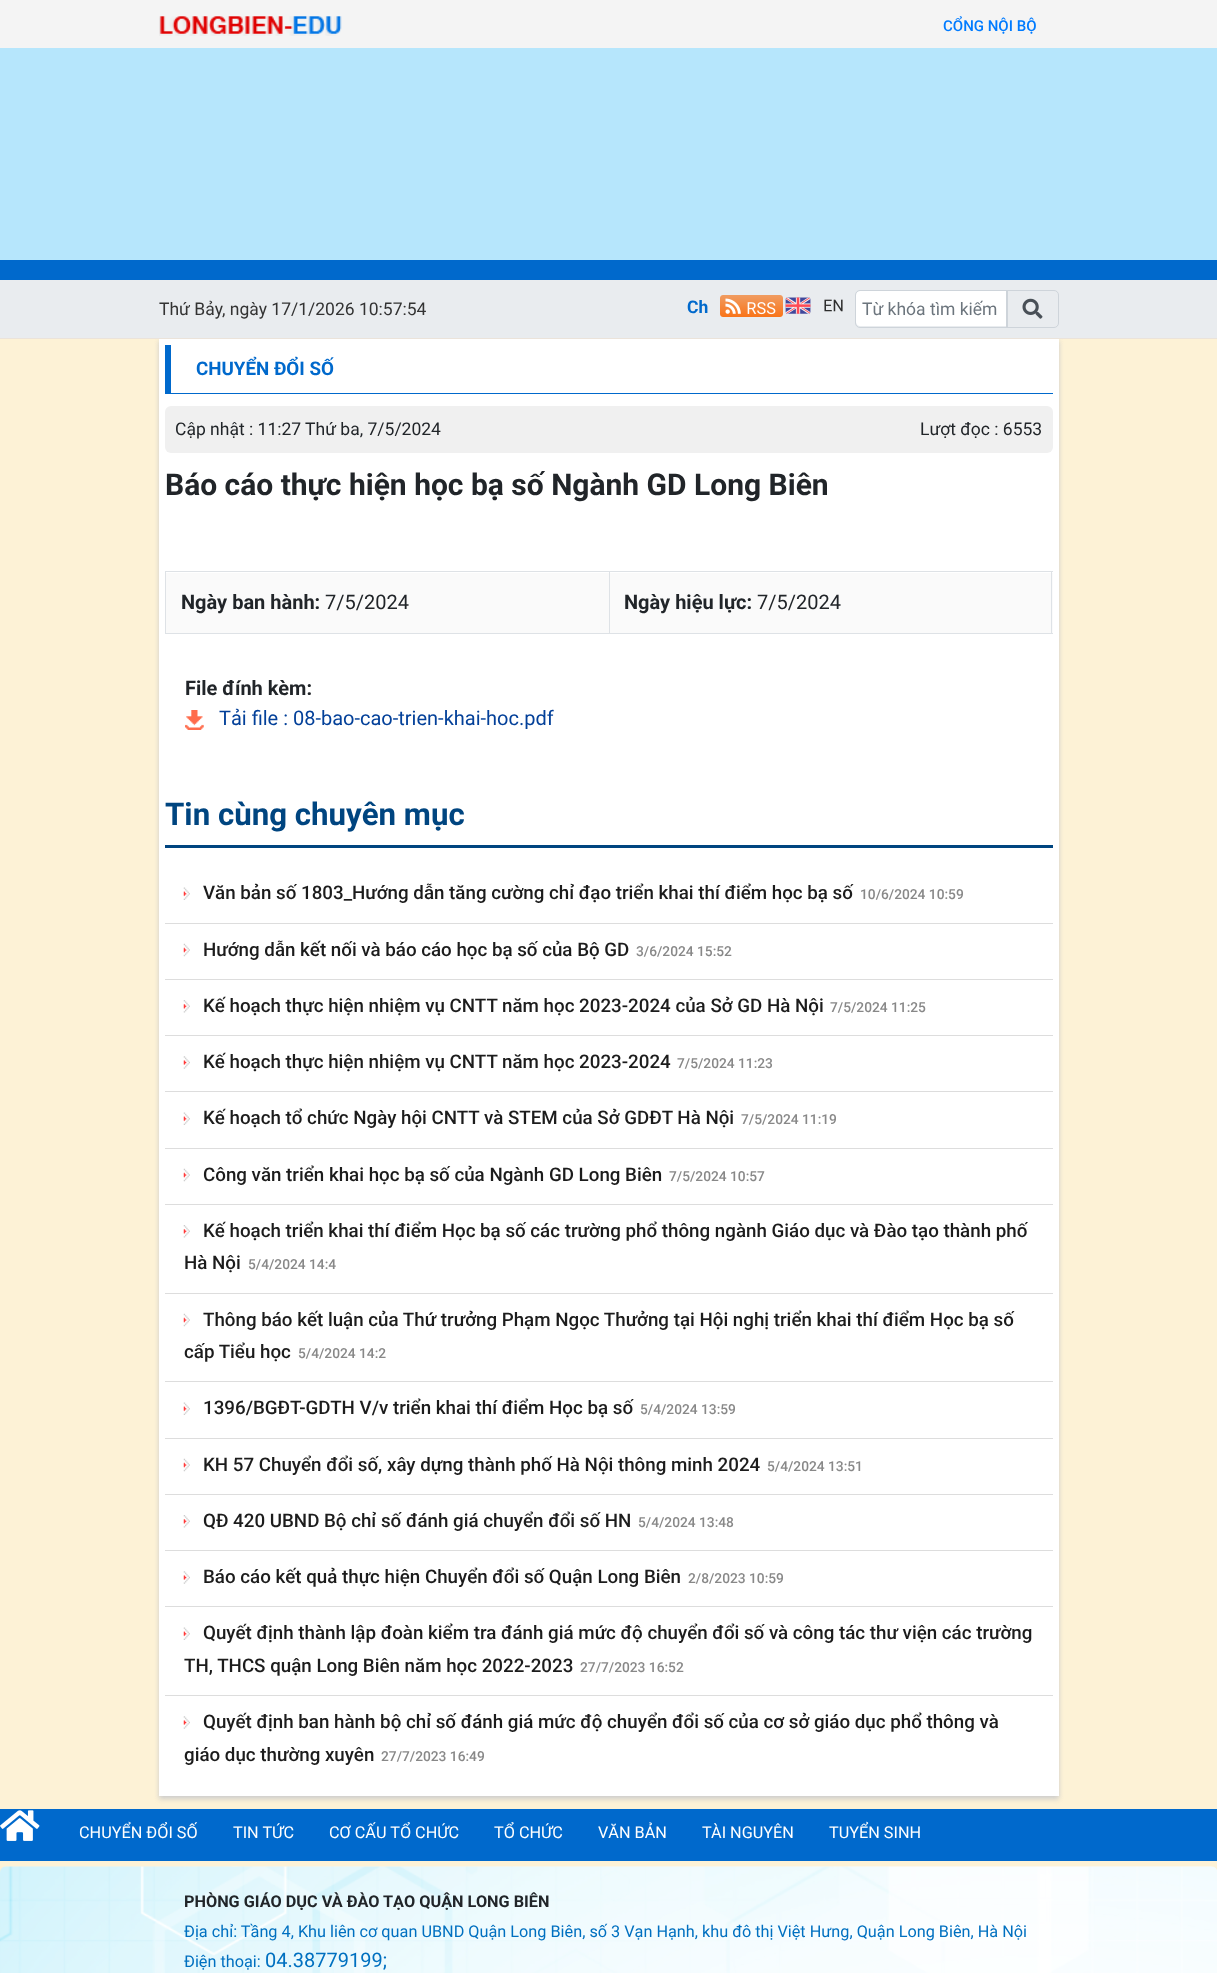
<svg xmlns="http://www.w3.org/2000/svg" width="1217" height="1973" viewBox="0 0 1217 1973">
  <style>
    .t1 { font: 500 15px Roboto; fill: #007bff; }
    .t2 { font: 17.5px Roboto; fill: #333; }
    .t3 { font: bold 17.5px Roboto; fill: #0069cc; }
    .t4 { font: 17.5px Roboto; fill: #6c757d; }
    .t5 { font: bold 18.75px Roboto; fill: #0069cc; }
    .t6 { font: 17.5px Roboto; fill: #212529; }
    .t7 { font: bold 30px Roboto; fill: #212529; }
    .t8 { font: bold 20px Roboto; fill: #212529; }
    .t9 { font: 20px Roboto; fill: #212529; }
    .t10 { font: 20px Roboto; fill: #034099; }
    .t11 { font: bold 31.25px Roboto; fill: #004580; }
    .t12 { font: 500 18.75px Roboto; fill: #1c1c1c; }
    .t13 { font: 500 13.75px Roboto; fill: #888; }
    .t14 { font: 16.25px Roboto; fill: #fff; }
    .t15 { font: bold 16.25px Roboto; fill: #212529; }
    .t16 { font: 16.25px Roboto; fill: #0070c0; }
    .t17 { font: 20px Roboto; fill: #0070c0; }
  </style>
  <rect width="100%" height="100%" fill="#fdf2d6"/>
  <rect x="0" y="0" width="1217" height="48" fill="#f4f4f4"/>
  <image x="159" y="16" width="183" height="20" href="images/1.png"/>
  <text x="943" y="31" class="t1">CỔNG NỘI BỘ</text>
  <rect x="0" y="48" width="1217" height="212" fill="#b6e6fc"/>
  <rect x="0" y="260" width="1217" height="20" fill="#0069cc"/>
  <rect x="159" y="341" width="900" height="1458" fill="#ccc" filter="blur(2.5px)"/>
  <rect x="0" y="280" width="1217" height="58" fill="#e9ecef"/>
  <rect x="0" y="338" width="1217" height="1" fill="#ebe3da"/>
  <text x="159" y="315" class="t2">Thứ Bảy, ngày 17/1/2026 10:57:54</text>
  <text x="687" y="313" word-spacing="-1" class="t3">Ch</text>
  <image x="720" y="295" width="63" height="22" href="images/2.png"/>
  <image x="785" y="297" width="58" height="17" href="images/3.png"/>
  <path d="M860 291H1006V326H860C858 326 856 324 856 322V295C856 293 858 291 860 291Z" fill="#fff"/>
  <path d="M1006.5 290.5H1054C1056.5 290.5 1058.5 292.5 1058.5 295V323C1058.5 325.5 1056.5 327.5 1054 327.5H1006.5Z" fill="none" stroke="#ced4da"/>
  <path d="M860 290.5H1007.5V327.5H860C857.5 327.5 855.5 325.5 855.5 323V295C855.5 292.5 857.5 290.5 860 290.5Z" fill="none" stroke="#ced4da"/>
  <text x="862" y="315" class="t4">Từ khóa tìm kiếm</text>
  <image x="1022" y="298" width="21" height="21" href="images/4.png"/>
  <rect x="159" y="339" width="900" height="1457" fill="#fff"/>
  <rect x="165" y="393" width="888" height="1" fill="#0069cc"/>
  <rect x="165" y="345" width="6" height="49" fill="#0069cc"/>
  <text x="196" y="375" class="t5">CHUYỂN ĐỔI SỐ</text>
  <rect x="165" y="406" width="888" height="47" rx="6" fill="#f0f0f0"/>
  <text x="175" y="435" class="t6">Cập nhật : 11:27 Thứ ba, 7/5/2024</text>
  <text x="920" y="435" class="t6">Lượt đọc : 6553</text>
  <text x="165" y="495" class="t7">Báo cáo thực hiện học bạ số Ngành GD Long Biên</text>
  <rect x="166" y="573" width="887" height="60" fill="#fafafa"/>
  <rect x="609" y="571" width="444" height="1" fill="#dee2e6"/>
  <rect x="1051" y="571" width="1" height="63" fill="#dee2e6"/>
  <rect x="609" y="633" width="444" height="1" fill="#dee2e6"/>
  <rect x="609" y="571" width="1" height="63" fill="#dee2e6"/>
  <rect x="165" y="571" width="445" height="1" fill="#dee2e6"/>
  <rect x="165" y="633" width="445" height="1" fill="#dee2e6"/>
  <rect x="165" y="571" width="1" height="63" fill="#dee2e6"/>
  <text x="181" y="609" class="t8">Ngày ban hành:</text>
  <text x="325" y="609" class="t9">7/5/2024</text>
  <text x="624" y="609" class="t8">Ngày hiệu lực:</text>
  <text x="757" y="609" class="t9">7/5/2024</text>
  <text x="185" y="695" class="t8">File đính kèm:</text>
  <image x="185" y="710" width="19" height="20" href="images/5.png"/>
  <text x="219" y="725" class="t10">Tải file : 08-bao-cao-trien-khai-hoc.pdf</text>
  <rect x="165" y="845" width="888" height="3" fill="#004580"/>
  <text x="165" y="825" class="t11">Tin cùng chuyên mục</text>
  <rect x="165" y="923" width="888" height="1" fill="#ddd"/>
  <image x="183" y="887" width="7" height="13" href="images/6.png"/>
  <text x="203" y="899" class="t12">Văn bản số 1803_Hướng dẫn tăng cường chỉ đạo triển khai thí điểm học bạ số</text>
  <text x="860" y="899" class="t13">10/6/2024 10:59</text>
  <rect x="165" y="979" width="888" height="1" fill="#ddd"/>
  <image x="183" y="943" width="7" height="14" href="images/7.png"/>
  <text x="203" y="956" class="t12">Hướng dẫn kết nối và báo cáo học bạ số của Bộ GD</text>
  <text x="636" y="956" class="t13">3/6/2024 15:52</text>
  <rect x="165" y="1035" width="888" height="1" fill="#ddd"/>
  <image x="183" y="1000" width="7" height="13" href="images/8.png"/>
  <text x="203" y="1012" class="t12">Kế hoạch thực hiện nhiệm vụ CNTT năm học 2023-2024 của Sở GD Hà Nội</text>
  <text x="830" y="1012" class="t13">7/5/2024 11:25</text>
  <rect x="165" y="1091" width="888" height="1" fill="#ddd"/>
  <image x="183" y="1056" width="7" height="13" href="images/9.png"/>
  <text x="203" y="1068" class="t12">Kế hoạch thực hiện nhiệm vụ CNTT năm học 2023-2024</text>
  <text x="677" y="1068" class="t13">7/5/2024 11:23</text>
  <rect x="165" y="1148" width="888" height="1" fill="#ddd"/>
  <image x="183" y="1112" width="7" height="13" href="images/6.png"/>
  <text x="203" y="1124" class="t12">Kế hoạch tổ chức Ngày hội CNTT và STEM của Sở GDĐT Hà Nội</text>
  <text x="741" y="1124" class="t13">7/5/2024 11:19</text>
  <rect x="165" y="1204" width="888" height="1" fill="#ddd"/>
  <image x="183" y="1168" width="7" height="14" href="images/7.png"/>
  <text x="203" y="1181" class="t12">Công văn triển khai học bạ số của Ngành GD Long Biên</text>
  <text x="669" y="1181" class="t13">7/5/2024 10:57</text>
  <rect x="165" y="1293" width="888" height="1" fill="#ddd"/>
  <text x="203" y="1237" class="t12">Kế hoạch triển khai thí điểm Học bạ số các trường phổ thông ngành Giáo dục và Đào tạo thành phố</text>
  <text x="184" y="1269" class="t12">Hà Nội</text>
  <text x="248" y="1269" class="t13">5/4/2024 14:4</text>
  <image x="183" y="1225" width="7" height="13" href="images/8.png"/>
  <rect x="165" y="1381" width="888" height="1" fill="#ddd"/>
  <text x="203" y="1326" class="t12">Thông báo kết luận của Thứ trưởng Phạm Ngọc Thưởng tại Hội nghị triển khai thí điểm Học bạ số</text>
  <text x="184" y="1358" class="t12">cấp Tiểu học</text>
  <text x="298" y="1358" class="t13">5/4/2024 14:2</text>
  <image x="183" y="1313" width="7" height="14" href="images/7.png"/>
  <rect x="165" y="1438" width="888" height="1" fill="#ddd"/>
  <image x="183" y="1402" width="7" height="13" href="images/6.png"/>
  <text x="203" y="1414" class="t12">1396/BGĐT-GDTH V/v triển khai thí điểm Học bạ số</text>
  <text x="640" y="1414" class="t13">5/4/2024 13:59</text>
  <rect x="165" y="1494" width="888" height="1" fill="#ddd"/>
  <image x="183" y="1458" width="7" height="14" href="images/7.png"/>
  <text x="203" y="1471" class="t12">KH 57 Chuyển đổi số, xây dựng thành phố Hà Nội thông minh 2024</text>
  <text x="767" y="1471" class="t13">5/4/2024 13:51</text>
  <rect x="165" y="1550" width="888" height="1" fill="#ddd"/>
  <image x="183" y="1515" width="7" height="13" href="images/8.png"/>
  <text x="203" y="1527" class="t12">QĐ 420 UBND Bộ chỉ số đánh giá chuyển đổi số HN</text>
  <text x="638" y="1527" class="t13">5/4/2024 13:48</text>
  <rect x="165" y="1606" width="888" height="1" fill="#ddd"/>
  <image x="183" y="1571" width="7" height="13" href="images/9.png"/>
  <text x="203" y="1583" class="t12">Báo cáo kết quả thực hiện Chuyển đổi số Quận Long Biên</text>
  <text x="688" y="1583" class="t13">2/8/2023 10:59</text>
  <rect x="165" y="1695" width="888" height="1" fill="#ddd"/>
  <text x="203" y="1639" class="t12">Quyết định thành lập đoàn kiểm tra đánh giá mức độ chuyển đổi số và công tác thư viện các trường</text>
  <text x="184" y="1672" class="t12">TH, THCS quận Long Biên năm học 2022-2023</text>
  <text x="580" y="1672" class="t13">27/7/2023 16:52</text>
  <image x="183" y="1627" width="7" height="13" href="images/6.png"/>
  <text x="203" y="1728" class="t12">Quyết định ban hành bộ chỉ số đánh giá mức độ chuyển đổi số của cơ sở giáo dục phổ thông và</text>
  <text x="184" y="1761" class="t12">giáo dục thường xuyên</text>
  <text x="381" y="1761" class="t13">27/7/2023 16:49</text>
  <image x="183" y="1716" width="7" height="13" href="images/9.png"/>
  <rect x="0" y="1809" width="1217" height="52" fill="#0069cc"/>
  <image x="0" y="1810" width="40" height="31" href="images/10.png"/>
  <text x="79" y="1838" class="t14">CHUYỂN ĐỔI SỐ</text>
  <text x="233" y="1838" class="t14">TIN TỨC</text>
  <text x="329" y="1838" class="t14">CƠ CẤU TỔ CHỨC</text>
  <text x="494" y="1838" class="t14">TỔ CHỨC</text>
  <text x="598" y="1838" class="t14">VĂN BẢN</text>
  <text x="702" y="1838" class="t14">TÀI NGUYÊN</text>
  <text x="829" y="1838" class="t14">TUYỂN SINH</text>
  <image x="0" y="1866" width="1217" height="107" href="images/11.png"/>
  <text x="184" y="1907" class="t15">PHÒNG GIÁO DỤC VÀ ĐÀO TẠO QUẬN LONG BIÊN</text>
  <text x="184" y="1937" class="t16">Địa chỉ: Tầng 4, Khu liên cơ quan UBND Quận Long Biên, số 3 Vạn Hạnh, khu đô thị Việt Hưng, Quận Long Biên, Hà Nội</text>
  <text x="184" y="1967" class="t16">Điện thoại:</text>
  <text x="265" y="1967" class="t17">04.38779199;</text>
</svg>
